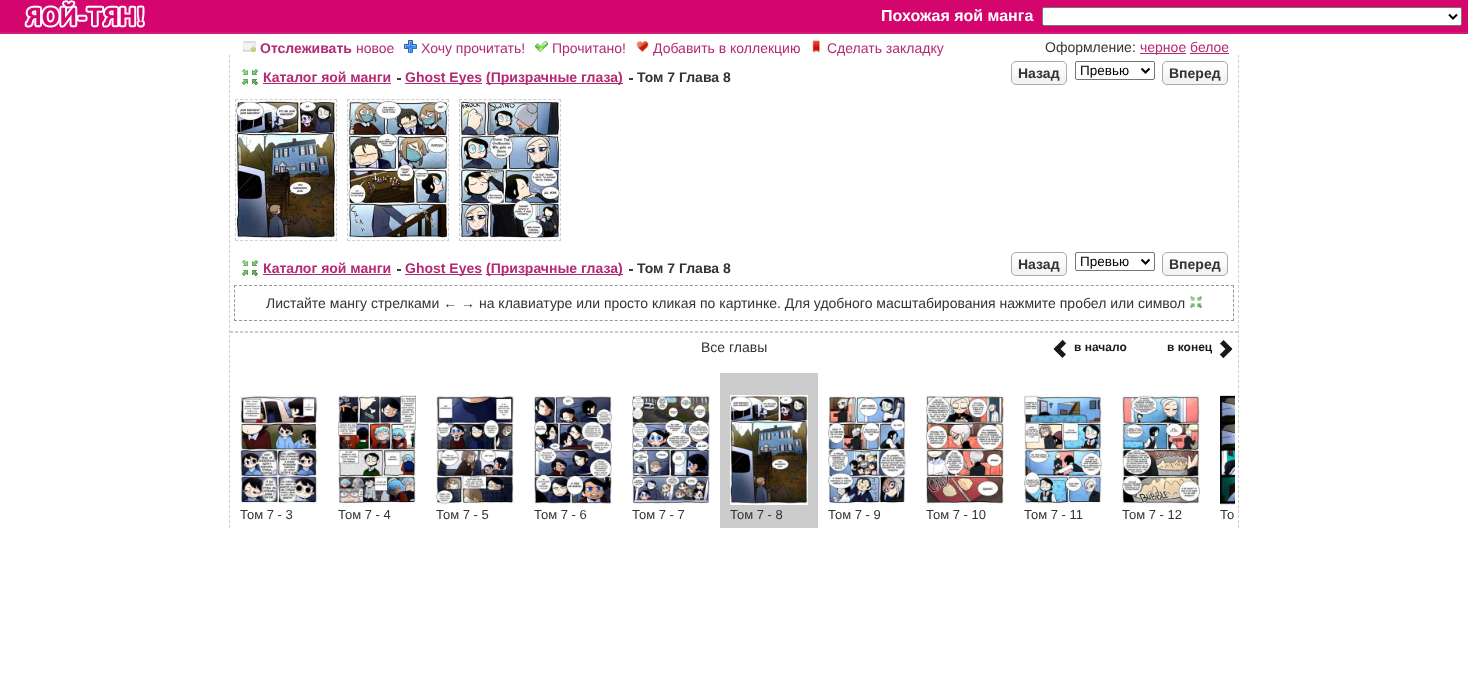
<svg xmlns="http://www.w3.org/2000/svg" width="1468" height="678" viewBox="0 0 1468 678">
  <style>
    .t1 { font: bold 16px Liberation Sans; fill: #fff; }
    .t2 { font: bold 14px Liberation Sans; fill: #b32973; }
    .t3 { font: 14px Liberation Sans; fill: #b32973; }
    .t4 { font: 14px Liberation Sans; fill: #333; }
    .t5 { font: bold 14px Liberation Sans; fill: #333; }
    .t6 { font: 13.5px Liberation Sans; fill: #000; }
    .t7 { font: bold 12px Liberation Sans; fill: #191919; }
    .t8 { font: 13px Liberation Sans; fill: #333; }
  </style>
  <rect width="100%" height="100%" fill="#fff"/>
  <rect x="0" y="0" width="1468" height="32" fill="#d4066d"/>
  <rect x="0" y="32" width="1468" height="2" fill="#cd1e7d"/>
  <image x="24" y="0" width="121" height="28" href="images/1.png"/>
  <text x="881" y="21" class="t1">Похожая яой манга</text>
  <rect x="1042.5" y="7.5" width="419" height="18" rx="1.5" fill="#fff" stroke="#767676"/>
  <path d="M1449 14.5L1453 18.5L1457 14.5" fill="none" stroke="#000" stroke-width="2"/>
  <image x="243" y="41" width="13" height="12" href="images/2.png"/>
  <text x="260" y="53" class="t2">Отслеживать</text>
  <text x="356" y="53" class="t3">новое</text>
  <image x="404" y="40" width="13" height="13" href="images/3.png"/>
  <text x="421" y="53" class="t3">Хочу прочитать!</text>
  <image x="535" y="40" width="13" height="13" href="images/4.png"/>
  <text x="552" y="53" class="t3">Прочитано!</text>
  <image x="636" y="40" width="13" height="13" href="images/5.png"/>
  <text x="653" y="53" class="t3">Добавить в коллекцию</text>
  <image x="812" y="40" width="8" height="13" href="images/6.png"/>
  <text x="827" y="53" class="t3">Сделать закладку</text>
  <text x="1045" y="52" class="t4">Оформление:</text>
  <rect x="1140" y="53" width="46" height="1" fill="#b32973"/>
  <text x="1140" y="52" class="t3">черное белое</text>
  <rect x="1190" y="53" width="39" height="1" fill="#b32973"/>
  <path d="M1238.5 55V528" fill="none" stroke="#cfcfcf" stroke-dasharray="3 2"/>
  <path d="M229.5 55V528" fill="none" stroke="#cfcfcf" stroke-dasharray="3 2"/>
  <image x="242" y="69" width="16" height="16" href="images/7.png"/>
  <text x="263" y="82" class="t2">Каталог яой манги</text>
  <rect x="397" y="78" width="4" height="2" fill="#3b3a36"/>
  <rect x="263" y="83" width="128" height="1" fill="#b32973"/>
  <rect x="405" y="83" width="77" height="1" fill="#b32973"/>
  <text x="405" y="82" class="t2">Ghost Eyes</text>
  <rect x="486" y="83" width="137" height="1" fill="#b32973"/>
  <text x="486" y="82" class="t2">(Призрачные глаза)</text>
  <rect x="629" y="78" width="4" height="2" fill="#3b3a36"/>
  <text x="637" y="82" class="t5">Том 7 Глава 8</text>
  <rect x="1011" y="61" width="56" height="24" rx="5" fill="#f3f3f3"/>
  <image x="1011" y="62" width="56" height="14" href="images/8.png"/>
  <rect x="1011.5" y="61.5" width="55" height="23" rx="4.5" fill="none" stroke="#aaa"/>
  <text x="1018" y="78" class="t5">Назад</text>
  <rect x="1075.5" y="61.5" width="79" height="18" rx="1.5" fill="none" stroke="#767676"/>
  <path d="M1141.5 68.5L1145.5 72.5L1149.5 68.5" fill="none" stroke="#000" stroke-width="2"/>
  <text x="1080" y="75" class="t6">Превью</text>
  <rect x="1162" y="61" width="66" height="24" rx="5" fill="#f3f3f3"/>
  <image x="1162" y="62" width="66" height="14" href="images/9.png"/>
  <rect x="1162.5" y="61.5" width="65" height="23" rx="4.5" fill="none" stroke="#aaa"/>
  <text x="1169" y="78" class="t5">Вперед</text>
  <path d="M235 99.5H337" fill="none" stroke="#cfcfcf" stroke-dasharray="3 1.95"/>
  <path d="M336.5 99V241" fill="none" stroke="#cfcfcf" stroke-dasharray="3 1.96"/>
  <path d="M235 240.5H337" fill="none" stroke="#cfcfcf" stroke-dasharray="3 1.95"/>
  <path d="M235.5 99V241" fill="none" stroke="#cfcfcf" stroke-dasharray="3 1.96"/>
  <path d="M347 99.5H449" fill="none" stroke="#cfcfcf" stroke-dasharray="3 1.95"/>
  <path d="M448.5 99V241" fill="none" stroke="#cfcfcf" stroke-dasharray="3 1.96"/>
  <path d="M347 240.5H449" fill="none" stroke="#cfcfcf" stroke-dasharray="3 1.95"/>
  <path d="M347.5 99V241" fill="none" stroke="#cfcfcf" stroke-dasharray="3 1.96"/>
  <path d="M459 99.5H561" fill="none" stroke="#cfcfcf" stroke-dasharray="3 1.95"/>
  <image x="236" y="100" width="100" height="140" href="images/10.png"/>
  <image x="348" y="100" width="100" height="140" href="images/11.png"/>
  <path d="M560.5 99V241" fill="none" stroke="#cfcfcf" stroke-dasharray="3 1.96"/>
  <path d="M459 240.5H561" fill="none" stroke="#cfcfcf" stroke-dasharray="3 1.95"/>
  <path d="M459.5 99V241" fill="none" stroke="#cfcfcf" stroke-dasharray="3 1.96"/>
  <image x="460" y="100" width="100" height="140" href="images/12.png"/>
  <image x="242" y="260" width="16" height="16" href="images/7.png"/>
  <text x="263" y="273" class="t2">Каталог яой манги</text>
  <rect x="397" y="269" width="4" height="2" fill="#3b3a36"/>
  <rect x="263" y="274" width="128" height="1" fill="#b32973"/>
  <rect x="405" y="274" width="77" height="1" fill="#b32973"/>
  <text x="405" y="273" class="t2">Ghost Eyes</text>
  <rect x="486" y="274" width="137" height="1" fill="#b32973"/>
  <text x="486" y="273" class="t2">(Призрачные глаза)</text>
  <rect x="629" y="269" width="4" height="2" fill="#3b3a36"/>
  <text x="637" y="273" class="t5">Том 7 Глава 8</text>
  <rect x="1011" y="252" width="56" height="24" rx="5" fill="#f3f3f3"/>
  <image x="1011" y="253" width="56" height="14" href="images/13.png"/>
  <rect x="1011.5" y="252.5" width="55" height="23" rx="4.5" fill="none" stroke="#aaa"/>
  <text x="1018" y="269" class="t5">Назад</text>
  <rect x="1075.5" y="252.5" width="79" height="18" rx="1.5" fill="none" stroke="#767676"/>
  <path d="M1141.5 259.5L1145.5 263.5L1149.5 259.5" fill="none" stroke="#000" stroke-width="2"/>
  <text x="1080" y="266" class="t6">Превью</text>
  <rect x="1162" y="252" width="66" height="24" rx="5" fill="#f3f3f3"/>
  <image x="1162" y="253" width="66" height="14" href="images/14.png"/>
  <rect x="1162.5" y="252.5" width="65" height="23" rx="4.5" fill="none" stroke="#aaa"/>
  <text x="1169" y="269" class="t5">Вперед</text>
  <path d="M234 285.5H1234" fill="none" stroke="#999" stroke-dasharray="3 2.01"/>
  <path d="M1233.5 285V321" fill="none" stroke="#999" stroke-dasharray="3 1.71"/>
  <path d="M234 320.5H1234" fill="none" stroke="#999" stroke-dasharray="3 2.01"/>
  <path d="M234.5 285V321" fill="none" stroke="#999" stroke-dasharray="3 1.71"/>
  <text x="266" y="308" class="t4">Листайте мангу стрелками ← → на клавиатуре или просто кликая по картинке. Для удобного масштабирования нажмите пробел или символ</text>
  <image x="1190" y="296" width="12" height="12" href="images/15.png"/>
  <path d="M230 331.5H1238" fill="none" stroke="#ccc" stroke-dasharray="3 2"/>
  <rect x="1237" y="331" width="1" height="2" fill="#ccc"/>
  <path d="M230 332.5H1238" fill="none" stroke="#ccc" stroke-dasharray="3 2"/>
  <text x="701" y="352" class="t4">Все главы</text>
  <image x="1053" y="339" width="14" height="19" href="images/16.png"/>
  <text x="1074" y="351" class="t7">в начало</text>
  <text x="1167" y="351" class="t7">в конец</text>
  <image x="1219" y="340" width="14" height="19" href="images/17.png"/>
  <image x="240" y="395" width="78" height="109" href="images/18.png"/>
  <text x="240" y="519" class="t8">Том 7 - 3</text>
  <image x="338" y="395" width="78" height="110" href="images/19.png"/>
  <text x="338" y="519" class="t8">Том 7 - 4</text>
  <image x="436" y="395" width="78" height="110" href="images/20.png"/>
  <text x="436" y="519" class="t8">Том 7 - 5</text>
  <image x="534" y="395" width="78" height="110" href="images/21.png"/>
  <text x="534" y="519" class="t8">Том 7 - 6</text>
  <image x="632" y="395" width="78" height="110" href="images/22.png"/>
  <text x="632" y="519" class="t8">Том 7 - 7</text>
  <rect x="720" y="373" width="98" height="155" fill="#ccc"/>
  <image x="730" y="395" width="78" height="110" href="images/23.png"/>
  <text x="730" y="519" class="t8">Том 7 - 8</text>
  <image x="828" y="395" width="78" height="110" href="images/24.png"/>
  <text x="828" y="519" class="t8">Том 7 - 9</text>
  <image x="926" y="395" width="78" height="110" href="images/25.png"/>
  <text x="926" y="519" class="t8">Том 7 - 10</text>
  <image x="1024" y="395" width="78" height="110" href="images/26.png"/>
  <text x="1024" y="519" class="t8">Том 7 - 11</text>
  <image x="1122" y="395" width="78" height="110" href="images/27.png"/>
  <text x="1122" y="519" class="t8">Том 7 - 12</text>
  <image x="1220" y="395" width="15" height="110" href="images/28.png"/>
  <text x="1220" y="519" class="t8">То</text>
</svg>
